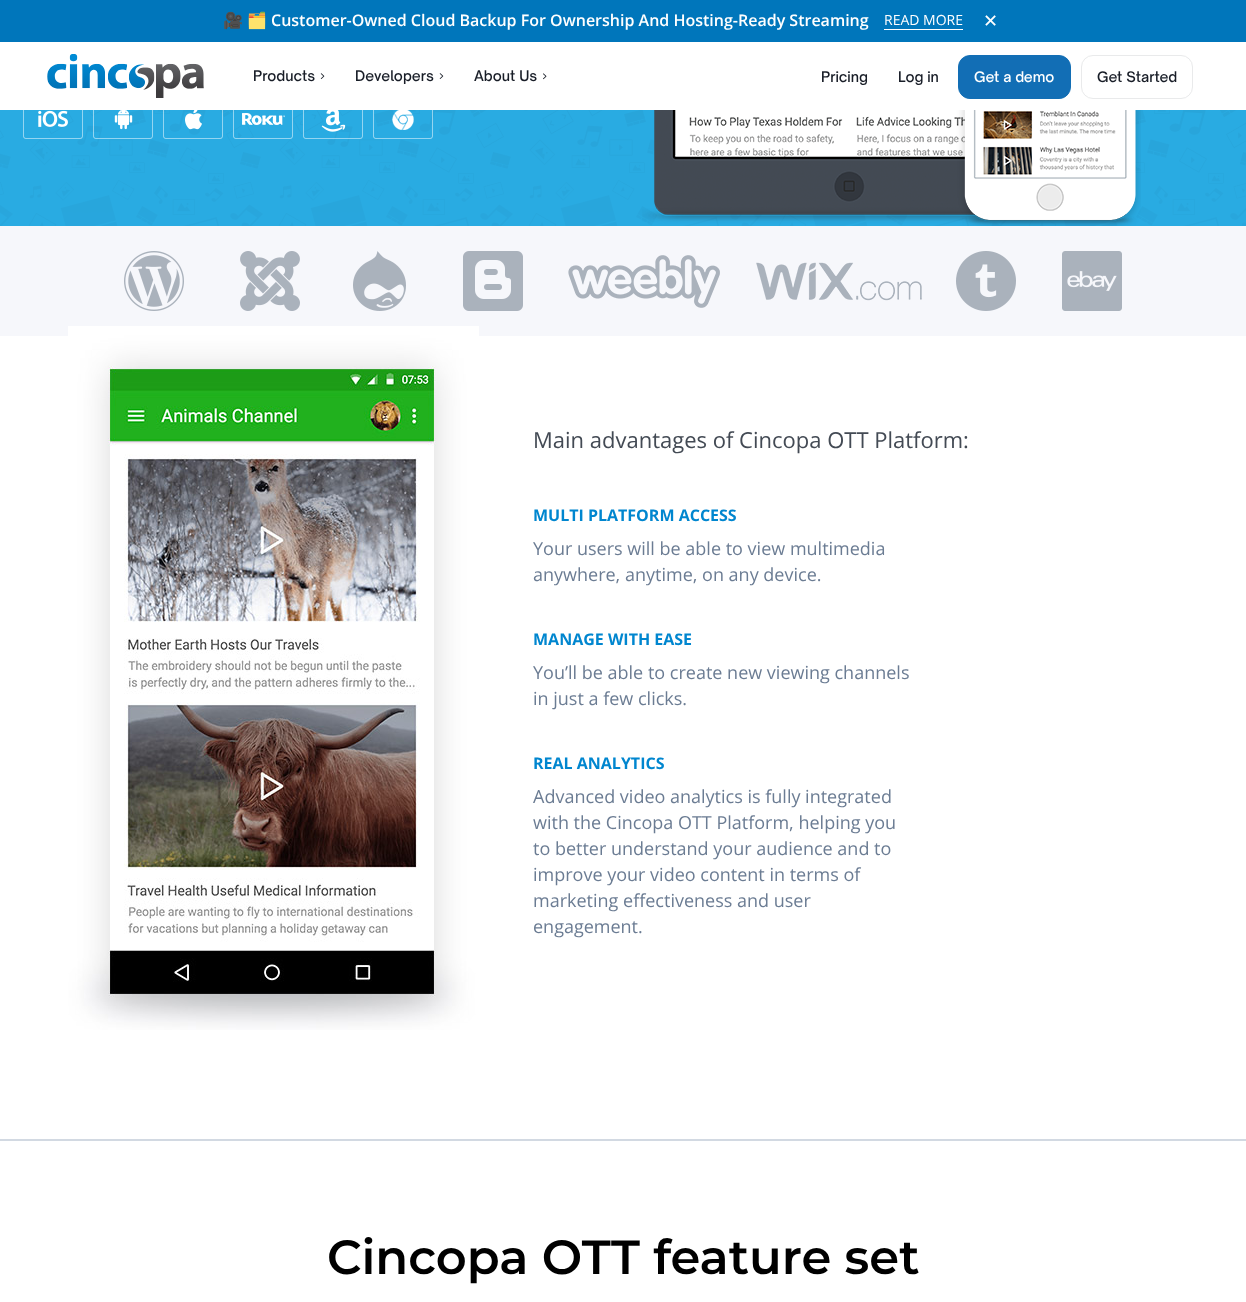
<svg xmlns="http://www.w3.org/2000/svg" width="1246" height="1302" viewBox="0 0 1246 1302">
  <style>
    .t1 { font: bold 16px Noto Color Emoji; fill: #fff; }
    .t2 { font: 600 16px Open Sans; fill: #fff; }
    .t3 { font: 14px Open Sans; fill: #fff; }
    .t4 { font: 18px DejaVu Sans; fill: #fff; }
    .t5 { font: 500 14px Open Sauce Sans; fill: #181d27; }
    .t6 { font: 500 14px Open Sauce Sans; fill: #fff; }
    .t7 { font: 22px Open Sans; fill: #434a54; }
    .t8 { font: bold 16px Open Sans; fill: #0086cf; }
    .t9 { font: 18px Open Sans; fill: #6b7c93; }
    .t10 { font: 600 48px Montserrat; fill: #000; }
  </style>
  <rect width="100%" height="100%" fill="#fff"/>
  <rect x="0" y="0" width="1246" height="42" fill="#0076bb"/>
  <text x="223" y="26" class="t1">🎥</text>
  <text x="247" y="26" class="t1">🗂️</text>
  <text x="271" y="26" class="t2">Customer-Owned Cloud Backup For Ownership And Hosting-Ready Streaming</text>
  <rect x="884" y="29" width="79" height="1" fill="#fff"/>
  <text x="884" y="25" class="t3">READ MORE</text>
  <text x="983" y="27" class="t4">✕</text>
  <image x="47" y="54" width="157" height="44" href="images/1.png"/>
  <text x="253" y="81" class="t5">Products</text>
  <image x="320" y="73" width="5" height="6" href="images/2.png"/>
  <text x="355" y="81" class="t5">Developers</text>
  <image x="439" y="73" width="5" height="6" href="images/3.png"/>
  <text x="474" y="81" class="t5">About Us</text>
  <image x="543" y="73" width="4" height="7" href="images/4.png"/>
  <text x="821" y="82" class="t5">Pricing</text>
  <text x="898" y="82" class="t5">Log in</text>
  <rect x="958.5" y="55.5" width="112" height="43" rx="11.5" fill="#126eb5" stroke="#126eb5"/>
  <text x="974" y="82" class="t6">Get a demo</text>
  <rect x="1081.5" y="55.5" width="111" height="43" rx="11.5" fill="none" stroke="#e9eaeb"/>
  <text x="1097" y="82" class="t5">Get Started</text>
  <image x="0" y="110" width="1246" height="116" href="images/5.png"/>
  <image x="23" y="110" width="410" height="29" href="images/6.png"/>
  <image x="642" y="110" width="499" height="116" href="images/7.png"/>
  <rect x="0" y="226" width="1246" height="110" fill="#f6f7fb"/>
  <image x="124" y="251" width="998" height="60" href="images/8.png"/>
  <image x="68" y="326" width="411" height="704" href="images/9.png"/>
  <text x="533" y="448" class="t7">Main advantages of Cincopa OTT Platform:</text>
  <text x="533" y="521" class="t8">MULTI PLATFORM ACCESS</text>
  <text x="533" y="555" class="t9">Your users will be able to view multimedia</text>
  <text x="533" y="581" class="t9">anywhere, anytime, on any device.</text>
  <text x="533" y="645" class="t8">MANAGE WITH EASE</text>
  <text x="533" y="679" class="t9">You’ll be able to create new viewing channels</text>
  <text x="533" y="705" class="t9">in just a few clicks.</text>
  <text x="533" y="769" class="t8">REAL ANALYTICS</text>
  <text x="533" y="803" class="t9">Advanced video analytics is fully integrated</text>
  <text x="533" y="829" class="t9">with the Cincopa OTT Platform, helping you</text>
  <text x="533" y="855" class="t9">to better understand your audience and to</text>
  <text x="533" y="881" class="t9">improve your video content in terms of</text>
  <text x="533" y="907" class="t9">marketing effectiveness and user</text>
  <text x="533" y="933" class="t9">engagement.</text>
  <rect x="0" y="1139" width="1246" height="2" fill="#d2d9e2"/>
  <text x="327" y="1274" class="t10">Cincopa OTT feature set</text>
</svg>
